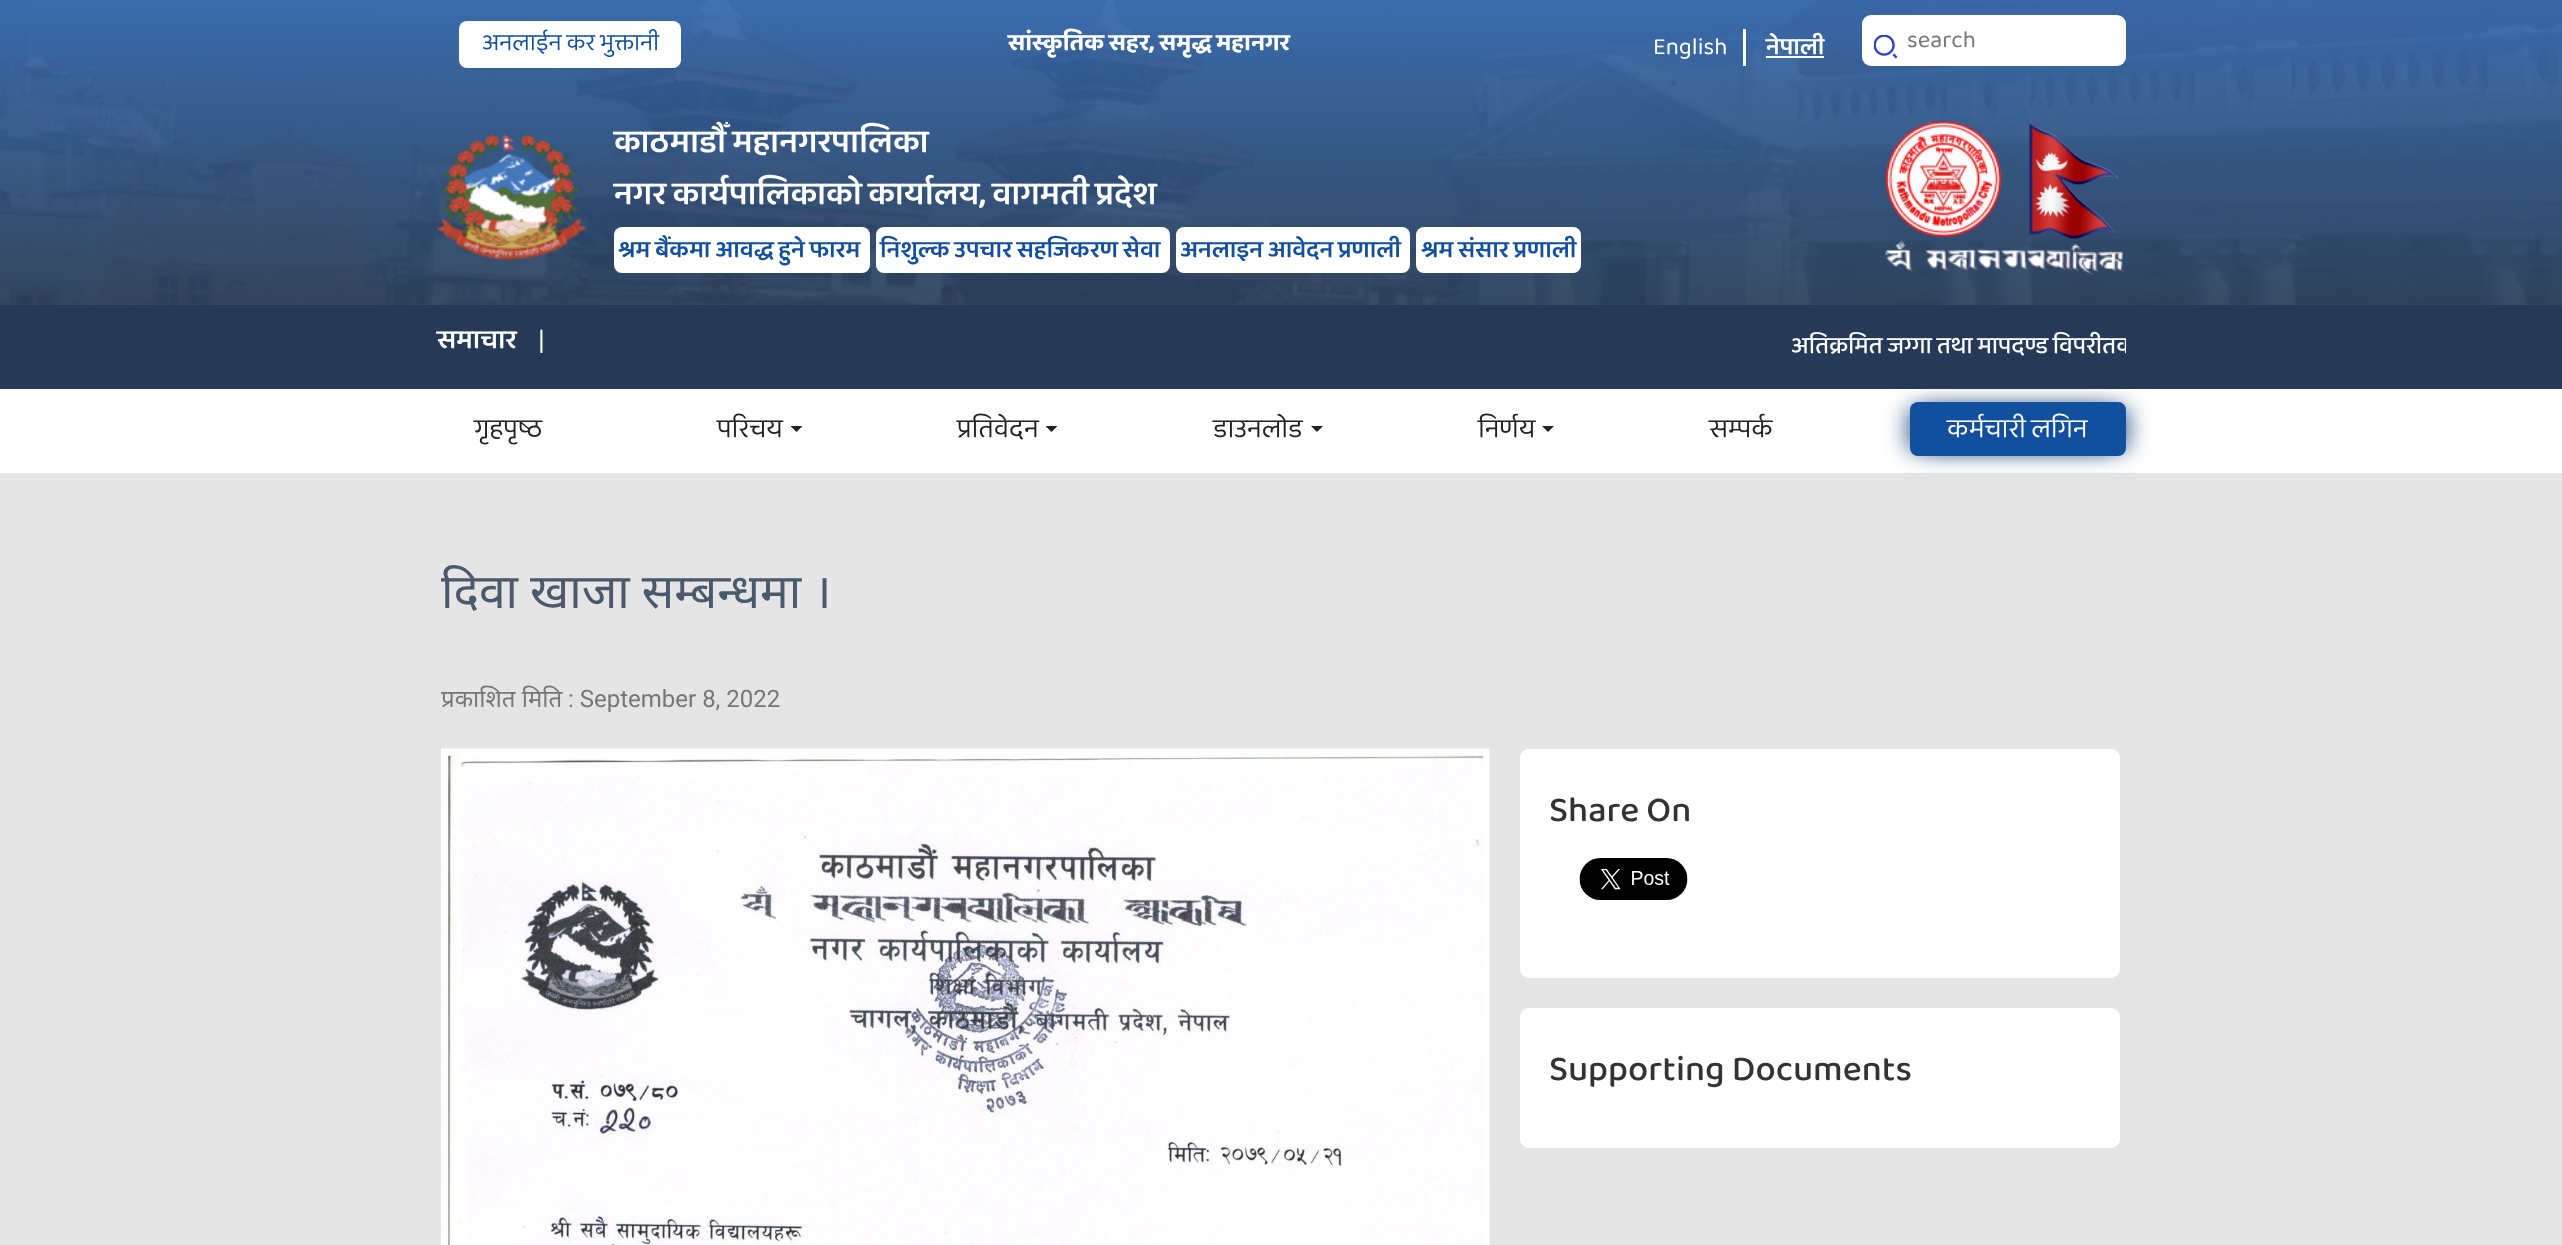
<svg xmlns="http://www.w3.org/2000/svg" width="2562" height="1245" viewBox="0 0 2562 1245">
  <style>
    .t1 { font: 24px 'Baloo 2'; fill: #124f9f; }
    .t2 { font: bold 24px 'Baloo 2'; fill: #fff; }
    .t3 { font: 24px 'Baloo 2'; fill: #fff; }
    .t4 { font: 600 24px 'Baloo 2'; fill: #fff; }
    .t5 { font: 24px 'Baloo 2'; fill: #777; }
    .t6 { font: 600 33px 'Baloo 2'; fill: #fff; }
    .t7 { font: 600 24px 'Baloo 2'; fill: #124f9f; }
    .t8 { font: 600 27px 'Baloo 2'; fill: #fff; }
    .t9 { font: 27px 'Baloo 2'; fill: #fff; }
    .t10 { font: 500 24px 'Baloo 2'; fill: #fff; }
    .t11 { font: 27px 'Baloo 2'; fill: #222; }
    .t12 { font: 48px Noto Sans; fill: #4a596b; }
    .t13 { font: 24px Noto Sans; fill: #777; }
    .t14 { font: 24px Roboto; fill: #777; }
    .t15 { font: 500 36px 'Baloo 2'; fill: #333; }
  </style>
  <defs>
    <linearGradient id="g1" gradientUnits="userSpaceOnUse" x1="1281" y1="0" x2="1281" y2="305"><stop offset="0" stop-color="#124f9f" stop-opacity="0.8"/><stop offset="1" stop-color="#071f3e" stop-opacity="0.8"/></linearGradient>
    <clipPath id="clip1"><rect x="546" y="329" width="1580" height="36"/></clipPath>
  </defs>
  <rect width="100%" height="100%" fill="#fff"/>
  <image x="0" y="0" width="2562" height="305" href="images/1.png"/>
  <rect x="0" y="0" width="2562" height="305" fill="url(#g1)"/>
  <rect x="459" y="21" width="222" height="47" rx="8" fill="#fff"/>
  <text x="482" y="50" class="t1">अनलाईन कर भुक्तानी</text>
  <text x="1008" y="50" class="t2">सांस्कृतिक सहर, समृद्ध महानगर</text>
  <text x="1653" y="54" class="t3">English</text>
  <rect x="1743" y="29" width="3" height="37" fill="#fff"/>
  <text x="1766" y="54" class="t4">नेपाली</text>
  <rect x="1766" y="56" width="58" height="2" fill="#fff"/>
  <rect x="1862" y="15" width="264" height="51" rx="9" fill="#fff"/>
  <image x="1874" y="35" width="24" height="24" href="images/2.png"/>
  <text x="1907" y="47" class="t5">search</text>
  <image x="436" y="133" width="151" height="127" href="images/3.png"/>
  <text x="614" y="152" class="t6">काठमाडौँ महानगरपालिका</text>
  <text x="614" y="204" class="t6">नगर कार्यपालिकाको कार्यालय, वागमती प्रदेश</text>
  <rect x="614" y="227" width="256" height="46" rx="8" fill="#fff"/>
  <text x="618" y="257" class="t7">श्रम बैंकमा आवद्ध हुने फारम</text>
  <rect x="876" y="227" width="294" height="46" rx="8" fill="#fff"/>
  <text x="880" y="257" class="t7">निशुल्क उपचार सहजिकरण सेवा</text>
  <rect x="1176" y="227" width="234" height="46" rx="8" fill="#fff"/>
  <text x="1180" y="257" class="t7">अनलाइन आवेदन प्रणाली</text>
  <rect x="1416" y="227" width="165" height="46" rx="8" fill="#fff"/>
  <text x="1421" y="257" class="t7">श्रम संसार प्रणाली</text>
  <image x="1885" y="121" width="117" height="117" href="images/4.png"/>
  <image x="2029" y="122" width="90" height="117" href="images/5.png"/>
  <image x="1885" y="239" width="239" height="36" href="images/6.png"/>
  <rect x="0" y="305" width="2562" height="84" fill="#263a57"/>
  <text x="437" y="348" class="t8">समाचार</text>
  <text x="538" y="348" class="t9">|</text>
  <g clip-path="url(#clip1)">
    <text x="1791" y="353" class="t10">अतिक्रमित जग्गा तथा मापदण्ड विपरीतक</text>
  </g>
  <text x="474" y="437" class="t11">गृहपृष्ठ</text>
  <text x="717" y="437" class="t11">परिचय</text>
  <image x="791" y="426" width="12" height="6" href="images/7.png"/>
  <text x="957" y="437" class="t11">प्रतिवेदन</text>
  <image x="1046" y="426" width="12" height="6" href="images/7.png"/>
  <text x="1213" y="437" class="t11">डाउनलोड</text>
  <image x="1311" y="426" width="12" height="6" href="images/8.png"/>
  <text x="1478" y="437" class="t11">निर्णय</text>
  <image x="1542" y="426" width="12" height="6" href="images/8.png"/>
  <text x="1709" y="437" class="t11">सम्पर्क</text>
  <rect x="0" y="473" width="2562" height="772" fill="#e5e5e5"/>
  <rect x="1907" y="408" width="204" height="42" rx="1.5" fill="#1f497dcc" filter="blur(11px)"/>
  <rect x="1925" y="408" width="204" height="42" rx="1.5" fill="#1f497dcc" filter="blur(11px)"/>
  <rect x="1910" y="402" width="216" height="54" rx="8" fill="#124f9f"/>
  <text x="1947" y="437" class="t9">कर्मचारी लगिन</text>
  <text x="441" y="608" word-spacing="-0.5" class="t12">दिवा खाजा सम्बन्धमा ।</text>
  <text x="441" y="707" class="t13">प्रकाशित मिति</text>
  <text x="568" y="707" class="t14">: September 8, 2022</text>
  <image x="441" y="748" width="1049" height="497" href="images/9.png"/>
  <rect x="1520" y="749" width="600" height="229" rx="9" fill="#fff"/>
  <text x="1549" y="821" class="t15">Share On</text>
  <image x="1579" y="858" width="109" height="42" href="images/10.png"/>
  <rect x="1520" y="1008" width="600" height="140" rx="9" fill="#fff"/>
  <text x="1549" y="1080" class="t15">Supporting Documents</text>
</svg>
